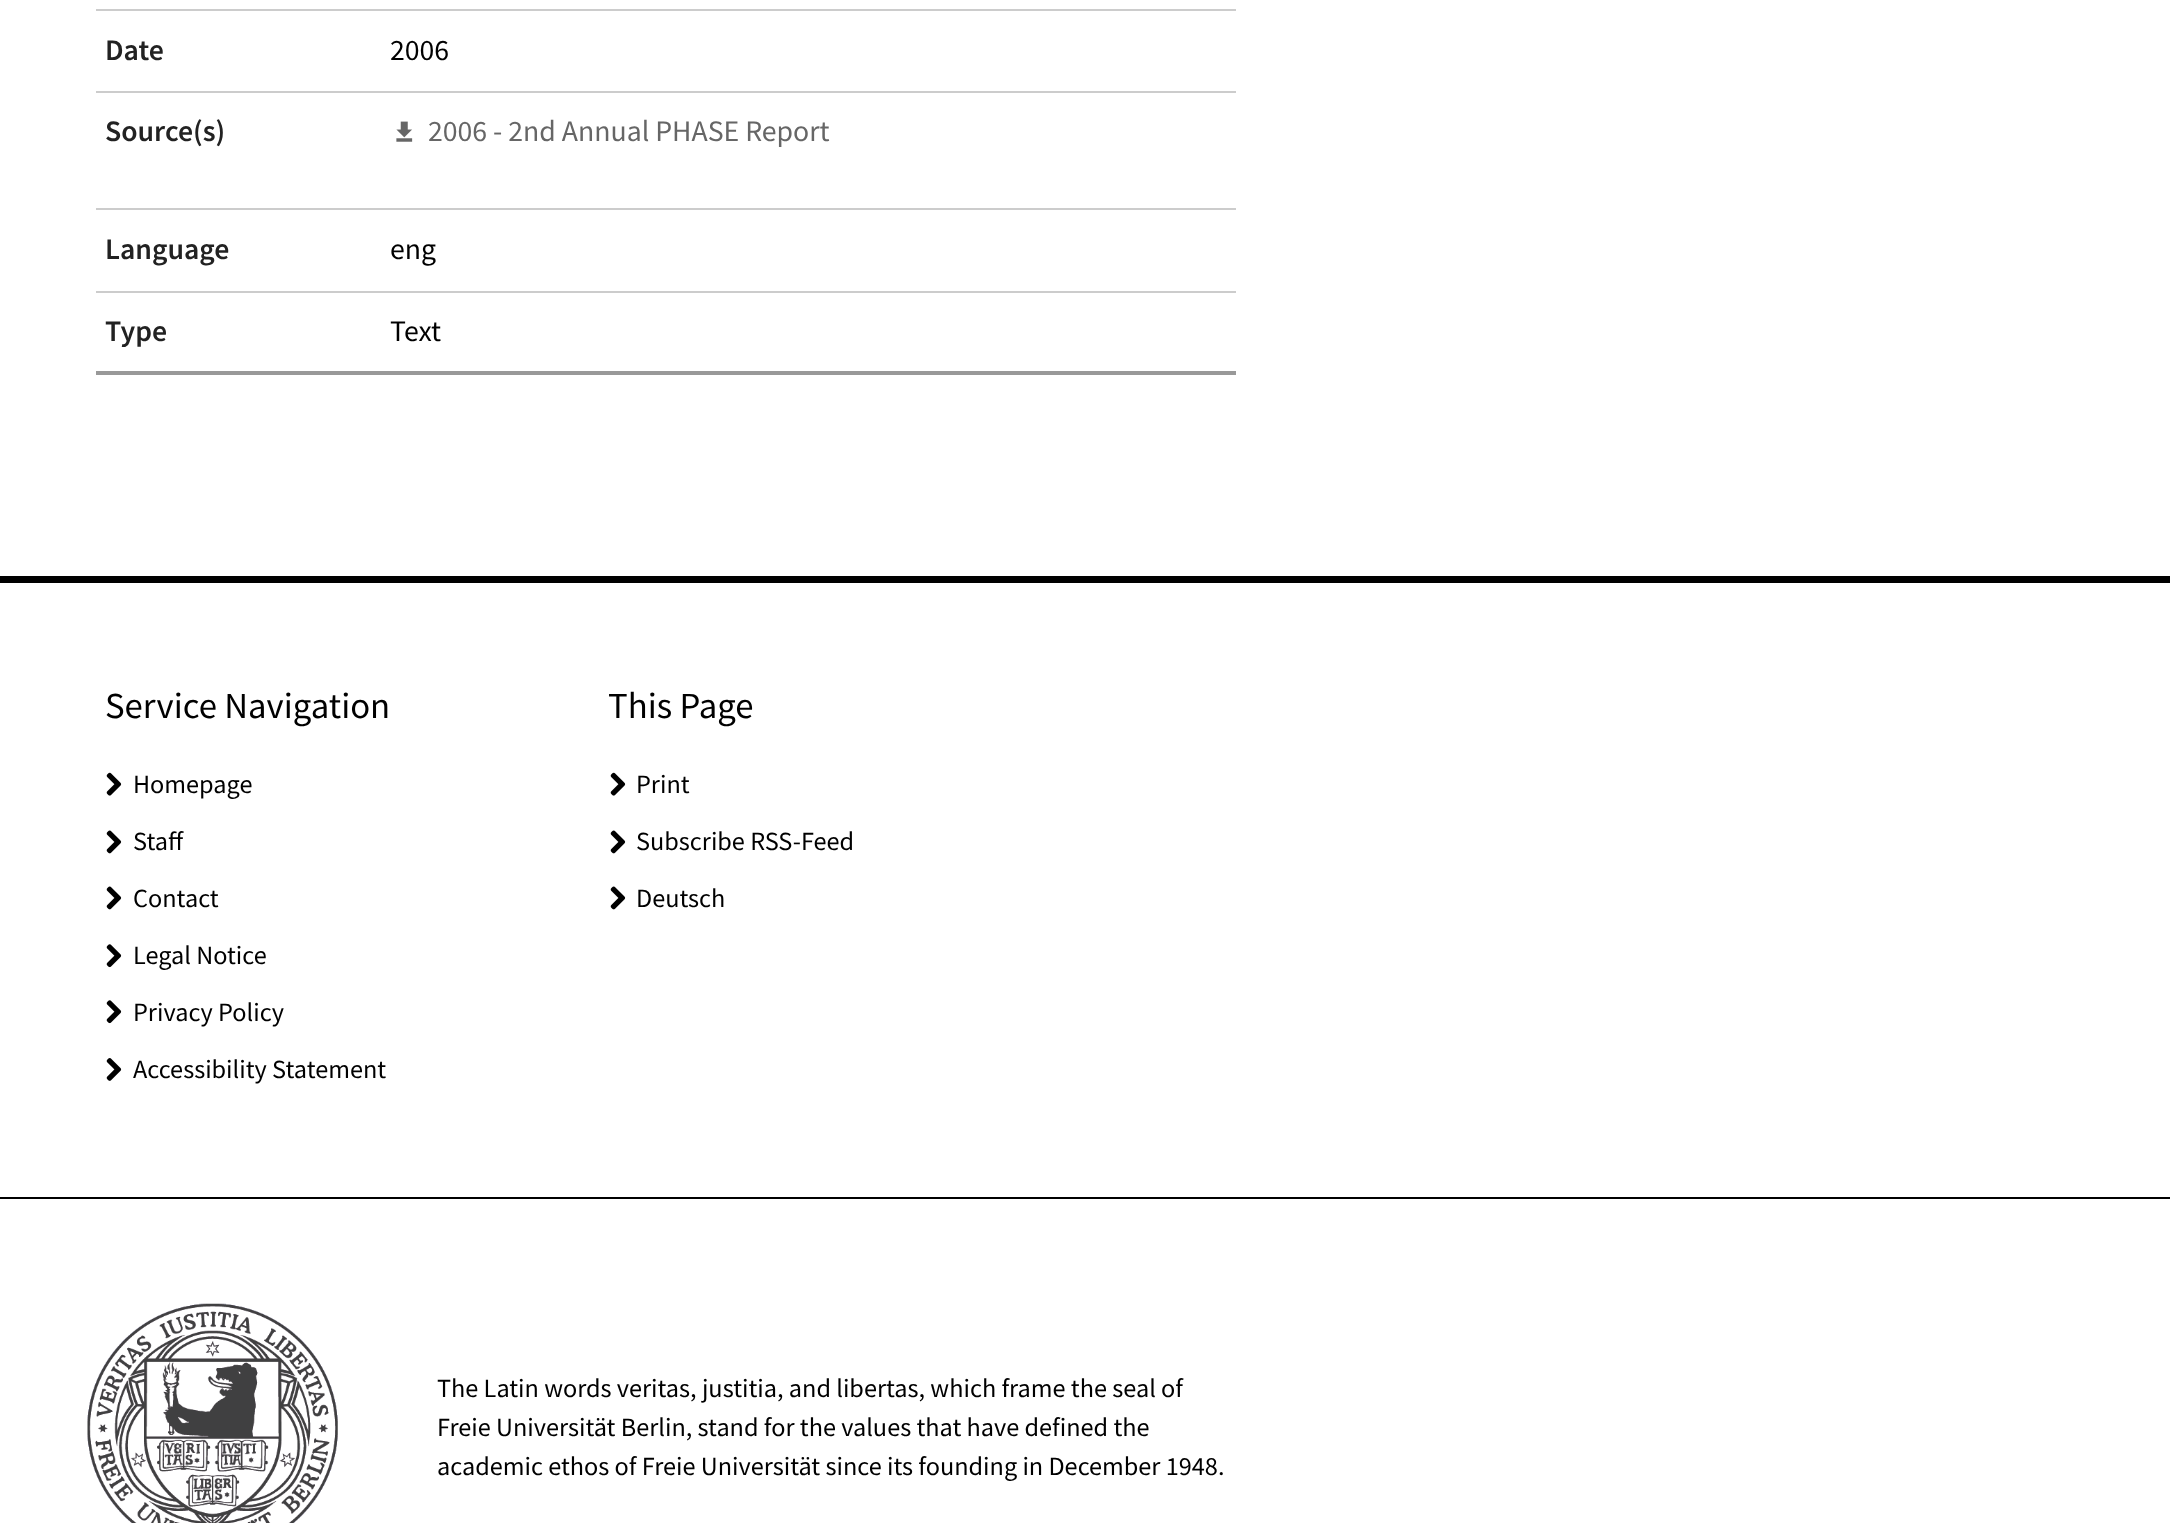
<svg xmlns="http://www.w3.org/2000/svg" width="2170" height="1523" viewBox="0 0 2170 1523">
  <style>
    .t1 { font: 600 29.75px Source Sans Pro; fill: #222; }
    .t2 { font: 29.75px Source Sans Pro; fill: #000; }
    .t3 { font: 29.75px Source Sans Pro; fill: #666; }
    .t4 { font: 36.75px Source Sans Pro; fill: #000; }
    .t5 { font: 26.25px Source Sans Pro; fill: #000; }
  </style>
  <rect width="100%" height="100%" fill="#fff"/>
  <rect x="96" y="9" width="1140" height="2" fill="#ccc"/>
  <text x="105" y="60" class="t1">Date</text>
  <text x="390" y="60" class="t2">2006</text>
  <rect x="96" y="91" width="1140" height="2" fill="#ccc"/>
  <text x="105" y="141" class="t1">Source(s)</text>
  <image x="396" y="121" width="17" height="21" href="images/1.png"/>
  <text x="428" y="141" class="t3">2006 - 2nd Annual PHASE Report</text>
  <rect x="96" y="208" width="1140" height="2" fill="#ccc"/>
  <text x="105" y="259" class="t1">Language</text>
  <text x="390" y="259" class="t2">eng</text>
  <rect x="96" y="291" width="1140" height="2" fill="#ccc"/>
  <rect x="96" y="371" width="1140" height="4" fill="#999"/>
  <text x="105" y="341" class="t1">Type</text>
  <text x="390" y="341" class="t2">Text</text>
  <rect x="0" y="576" width="2170" height="7" fill="#000"/>
  <rect x="0" y="1197" width="2170" height="2" fill="#000"/>
  <text x="105" y="718" class="t4">Service Navigation</text>
  <image x="106" y="772" width="16" height="24" href="images/2.png"/>
  <text x="133" y="793" class="t5">Homepage</text>
  <image x="106" y="830" width="16" height="24" href="images/3.png"/>
  <text x="133" y="850" class="t5">Staff</text>
  <image x="106" y="886" width="16" height="24" href="images/3.png"/>
  <text x="133" y="907" class="t5">Contact</text>
  <image x="106" y="944" width="16" height="24" href="images/4.png"/>
  <text x="133" y="964" class="t5">Legal Notice</text>
  <image x="106" y="1000" width="16" height="24" href="images/4.png"/>
  <text x="133" y="1021" class="t5">Privacy Policy</text>
  <image x="106" y="1058" width="16" height="23" href="images/5.png"/>
  <text x="133" y="1078" class="t5">Accessibility Statement</text>
  <text x="608" y="718" class="t4">This Page</text>
  <image x="610" y="772" width="16" height="24" href="images/2.png"/>
  <text x="636" y="793" class="t5">Print</text>
  <image x="610" y="830" width="16" height="24" href="images/3.png"/>
  <text x="636" y="850" class="t5">Subscribe RSS-Feed</text>
  <image x="610" y="886" width="16" height="24" href="images/3.png"/>
  <text x="636" y="907" class="t5">Deutsch</text>
  <image x="87" y="1303" width="251" height="220" href="images/6.png"/>
  <text x="437" y="1397" class="t5">The Latin words veritas, justitia, and libertas, which frame the seal of</text>
  <text x="437" y="1436" class="t5">Freie Universität Berlin, stand for the values that have defined the</text>
  <text x="437" y="1475" class="t5">academic ethos of Freie Universität since its founding in December 1948.</text>
</svg>
